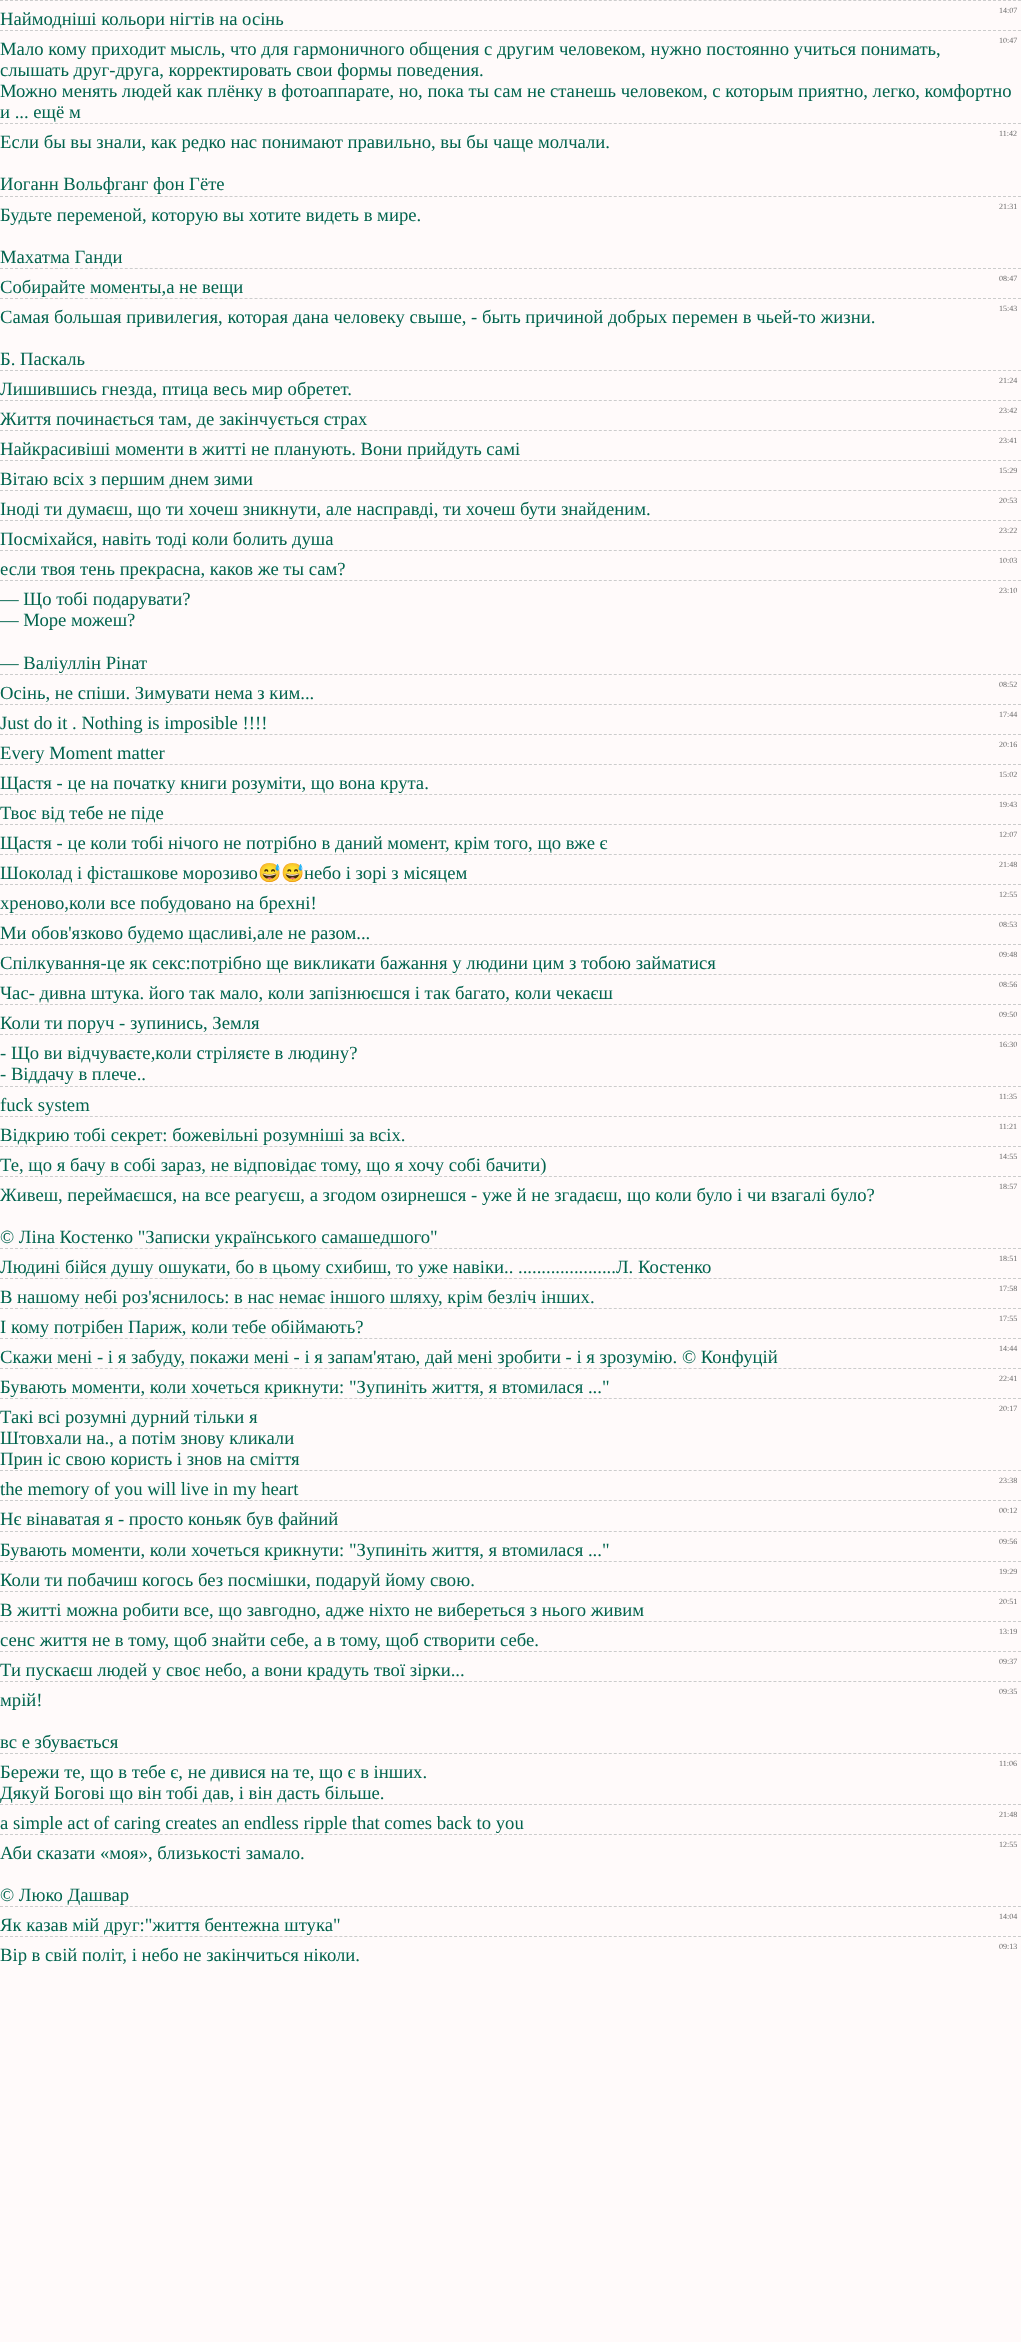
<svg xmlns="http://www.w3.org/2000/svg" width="1021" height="2342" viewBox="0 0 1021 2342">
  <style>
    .t1 { font: 8px Liberation Serif; fill: #696969; }
    .t2 { font: 18.67px Liberation Serif; fill: #02644e; }
    .t3 { font: 18.67px Noto Color Emoji; fill: #02644e; }
  </style>
  <rect width="100%" height="100%" fill="#fffafa"/>
  <path d="M0 .5H1021" fill="none" stroke="#ccc" stroke-dasharray="3 1.99"/>
  <text x="999" y="13" class="t1">14:07</text>
  <text x="0" y="25" class="t2">Наймодніші кольори нігтів на осінь</text>
  <path d="M0 30.5H1021" fill="none" stroke="#ccc" stroke-dasharray="3 1.99"/>
  <text x="999" y="43" class="t1">10:47</text>
  <text x="0" y="55" class="t2">Мало кому приходит мысль, что для гармоничного общения с другим человеком, нужно постоянно учиться понимать,</text>
  <text x="0" y="76" class="t2">слышать друг-друга, корректировать свои формы поведения.</text>
  <text x="0" y="97" class="t2">Можно менять людей как плёнку в фотоаппарате, но, пока ты сам не станешь человеком, с которым приятно, легко, комфортно</text>
  <text x="0" y="118" class="t2">и ... ещё м</text>
  <text x="0" y="148" class="t2">Если бы вы знали, как редко нас понимают правильно, вы бы чаще молчали.</text>
  <text x="0" y="190" class="t2">Иоганн Вольфганг фон Гёте</text>
  <path d="M0 123.5H1021" fill="none" stroke="#ccc" stroke-dasharray="3 1.99"/>
  <text x="999" y="136" class="t1">11:42</text>
  <path d="M0 196.5H1021" fill="none" stroke="#ccc" stroke-dasharray="3 1.99"/>
  <text x="999" y="209" class="t1">21:31</text>
  <text x="0" y="221" class="t2">Будьте переменой, которую вы хотите видеть в мире.</text>
  <text x="0" y="263" class="t2">Махатма Ганди</text>
  <text x="0" y="293" class="t2">Собирайте моменты,а не вещи</text>
  <path d="M0 268.5H1021" fill="none" stroke="#ccc" stroke-dasharray="3 1.99"/>
  <text x="999" y="281" class="t1">08:47</text>
  <text x="0" y="323" class="t2">Самая большая привилегия, которая дана человеку свыше, - быть причиной добрых перемен в чьей-то жизни.</text>
  <text x="0" y="365" class="t2">Б. Паскаль</text>
  <path d="M0 298.5H1021" fill="none" stroke="#ccc" stroke-dasharray="3 1.99"/>
  <text x="999" y="311" class="t1">15:43</text>
  <text x="0" y="395" class="t2">Лишившись гнезда, птица весь мир обретет.</text>
  <path d="M0 370.5H1021" fill="none" stroke="#ccc" stroke-dasharray="3 1.99"/>
  <text x="999" y="383" class="t1">21:24</text>
  <path d="M0 400.5H1021" fill="none" stroke="#ccc" stroke-dasharray="3 1.99"/>
  <text x="999" y="413" class="t1">23:42</text>
  <text x="0" y="425" class="t2">Життя починається там, де закінчується страх</text>
  <path d="M0 430.5H1021" fill="none" stroke="#ccc" stroke-dasharray="3 1.99"/>
  <text x="999" y="443" class="t1">23:41</text>
  <text x="0" y="455" class="t2">Найкрасивіші моменти в житті не планують. Вони прийдуть самі</text>
  <path d="M0 460.5H1021" fill="none" stroke="#ccc" stroke-dasharray="3 1.99"/>
  <text x="999" y="473" class="t1">15:29</text>
  <text x="0" y="485" class="t2">Вітаю всіх з першим днем зими</text>
  <text x="0" y="515" class="t2">Іноді ти думаєш, що ти хочеш зникнути, але насправді, ти хочеш бути знайденим.</text>
  <path d="M0 490.5H1021" fill="none" stroke="#ccc" stroke-dasharray="3 1.99"/>
  <text x="999" y="503" class="t1">20:53</text>
  <text x="0" y="545" class="t2">Посміхайся, навіть тоді коли болить душа</text>
  <path d="M0 520.5H1021" fill="none" stroke="#ccc" stroke-dasharray="3 1.99"/>
  <text x="999" y="533" class="t1">23:22</text>
  <path d="M0 550.5H1021" fill="none" stroke="#ccc" stroke-dasharray="3 1.99"/>
  <text x="999" y="563" class="t1">10:03</text>
  <text x="0" y="575" class="t2">если твоя тень прекрасна, каков же ты сам?</text>
  <text x="0" y="605" class="t2">— Що тобі подарувати?</text>
  <text x="0" y="626" class="t2">— Море можеш?</text>
  <text x="0" y="669" class="t2">— Валіуллін Рінат</text>
  <path d="M0 580.5H1021" fill="none" stroke="#ccc" stroke-dasharray="3 1.99"/>
  <text x="999" y="593" class="t1">23:10</text>
  <path d="M0 674.5H1021" fill="none" stroke="#ccc" stroke-dasharray="3 1.99"/>
  <text x="999" y="687" class="t1">08:52</text>
  <text x="0" y="699" class="t2">Осінь, не спіши. Зимувати нема з ким...</text>
  <path d="M0 704.5H1021" fill="none" stroke="#ccc" stroke-dasharray="3 1.99"/>
  <text x="999" y="717" class="t1">17:44</text>
  <text x="0" y="729" class="t2">Just do it . Nothing is imposible !!!!</text>
  <path d="M0 734.5H1021" fill="none" stroke="#ccc" stroke-dasharray="3 1.99"/>
  <text x="999" y="747" class="t1">20:16</text>
  <text x="0" y="759" class="t2">Every Moment matter</text>
  <path d="M0 764.5H1021" fill="none" stroke="#ccc" stroke-dasharray="3 1.99"/>
  <text x="999" y="777" class="t1">15:02</text>
  <text x="0" y="789" class="t2">Щастя - це на початку книги розуміти, що вона крута.</text>
  <text x="0" y="819" class="t2">Твоє від тебе не піде</text>
  <path d="M0 794.5H1021" fill="none" stroke="#ccc" stroke-dasharray="3 1.99"/>
  <text x="999" y="807" class="t1">19:43</text>
  <text x="0" y="849" class="t2">Щастя - це коли тобі нічого не потрібно в даний момент, крім того, що вже є</text>
  <path d="M0 824.5H1021" fill="none" stroke="#ccc" stroke-dasharray="3 1.99"/>
  <text x="999" y="837" class="t1">12:07</text>
  <text x="0" y="879" class="t2">Шоколад і фісташкове морозиво</text>
  <text x="258" y="879" class="t3">😅😅</text>
  <text x="304" y="879" class="t2">небо і зорі з місяцем</text>
  <path d="M0 854.5H1021" fill="none" stroke="#ccc" stroke-dasharray="3 1.99"/>
  <text x="999" y="867" class="t1">21:48</text>
  <text x="0" y="909" class="t2">хреново,коли все побудовано на брехнi!</text>
  <path d="M0 884.5H1021" fill="none" stroke="#ccc" stroke-dasharray="3 1.99"/>
  <text x="999" y="897" class="t1">12:55</text>
  <text x="0" y="939" class="t2">Ми обов'язково будемо щасливі,але не разом...</text>
  <path d="M0 914.5H1021" fill="none" stroke="#ccc" stroke-dasharray="3 1.99"/>
  <text x="999" y="927" class="t1">08:53</text>
  <text x="0" y="969" class="t2">Спілкування-це як секс:потрібно ще викликати бажання у людини цим з тобою займатися</text>
  <path d="M0 944.5H1021" fill="none" stroke="#ccc" stroke-dasharray="3 1.99"/>
  <text x="999" y="957" class="t1">09:48</text>
  <text x="0" y="999" class="t2">Час- дивна штука. його так мало, коли запізнюєшся і так багато, коли чекаєш</text>
  <path d="M0 974.5H1021" fill="none" stroke="#ccc" stroke-dasharray="3 1.99"/>
  <text x="999" y="987" class="t1">08:56</text>
  <path d="M0 1004.5H1021" fill="none" stroke="#ccc" stroke-dasharray="3 1.99"/>
  <text x="999" y="1017" class="t1">09:50</text>
  <text x="0" y="1029" class="t2">Коли ти поруч - зупинись, Земля</text>
  <path d="M0 1034.5H1021" fill="none" stroke="#ccc" stroke-dasharray="3 1.99"/>
  <text x="999" y="1047" class="t1">16:30</text>
  <text x="0" y="1059" class="t2">- Що ви відчуваєте,коли стріляєте в людину?</text>
  <text x="0" y="1080" class="t2">- Віддачу в плече..</text>
  <text x="0" y="1111" class="t2">fuck system</text>
  <path d="M0 1086.5H1021" fill="none" stroke="#ccc" stroke-dasharray="3 1.99"/>
  <text x="999" y="1099" class="t1">11:35</text>
  <text x="0" y="1141" class="t2">Відкрию тобі секрет: божевільні розумніші за всіх.</text>
  <path d="M0 1116.5H1021" fill="none" stroke="#ccc" stroke-dasharray="3 1.99"/>
  <text x="999" y="1129" class="t1">11:21</text>
  <text x="0" y="1171" class="t2">Те, що я бачу в собі зараз, не відповідає тому, що я хочу собі бачити)</text>
  <path d="M0 1146.5H1021" fill="none" stroke="#ccc" stroke-dasharray="3 1.99"/>
  <text x="999" y="1159" class="t1">14:55</text>
  <text x="0" y="1201" class="t2">Живеш, переймаєшся, на все реагуєш, а згодом озирнешся - уже й не згадаєш, що коли було і чи взагалі було?</text>
  <text x="0" y="1243" class="t2">© Ліна Костенко "Записки українського самашедшого"</text>
  <path d="M0 1176.5H1021" fill="none" stroke="#ccc" stroke-dasharray="3 1.99"/>
  <text x="999" y="1189" class="t1">18:57</text>
  <text x="0" y="1273" class="t2">Людині бійся душу ошукати, бо в цьому схибиш, то уже навіки.. .....................Л. Костенко</text>
  <path d="M0 1248.5H1021" fill="none" stroke="#ccc" stroke-dasharray="3 1.99"/>
  <text x="999" y="1261" class="t1">18:51</text>
  <text x="0" y="1303" class="t2">В нашому небі роз'яснилось: в нас немає іншого шляху, крім безліч інших.</text>
  <path d="M0 1278.5H1021" fill="none" stroke="#ccc" stroke-dasharray="3 1.99"/>
  <text x="999" y="1291" class="t1">17:58</text>
  <text x="0" y="1333" class="t2">І кому потрібен Париж, коли тебе обіймають?</text>
  <path d="M0 1308.5H1021" fill="none" stroke="#ccc" stroke-dasharray="3 1.99"/>
  <text x="999" y="1321" class="t1">17:55</text>
  <text x="0" y="1363" class="t2">Скажи мені - і я забуду, покажи мені - і я запам'ятаю, дай мені зробити - і я зрозумію. © Конфуцій</text>
  <path d="M0 1338.5H1021" fill="none" stroke="#ccc" stroke-dasharray="3 1.99"/>
  <text x="999" y="1351" class="t1">14:44</text>
  <path d="M0 1368.5H1021" fill="none" stroke="#ccc" stroke-dasharray="3 1.99"/>
  <text x="999" y="1381" class="t1">22:41</text>
  <text x="0" y="1393" class="t2">Бувають моменти, коли хочеться крикнути: "Зупиніть життя, я втомилася ..."</text>
  <path d="M0 1398.5H1021" fill="none" stroke="#ccc" stroke-dasharray="3 1.99"/>
  <text x="999" y="1411" class="t1">20:17</text>
  <text x="0" y="1423" class="t2">Такі всі розумні дурний тільки я</text>
  <text x="0" y="1444" class="t2">Штовхали на., а потім знову кликали</text>
  <text x="0" y="1465" class="t2">Прин іс свою користь і знов на сміття</text>
  <text x="0" y="1495" class="t2">the memory of you will live in my heart</text>
  <path d="M0 1470.5H1021" fill="none" stroke="#ccc" stroke-dasharray="3 1.99"/>
  <text x="999" y="1483" class="t1">23:38</text>
  <text x="0" y="1525" class="t2">Нє вінаватая я - просто коньяк був файний</text>
  <path d="M0 1500.5H1021" fill="none" stroke="#ccc" stroke-dasharray="3 1.99"/>
  <text x="999" y="1513" class="t1">00:12</text>
  <path d="M0 1531.5H1021" fill="none" stroke="#ccc" stroke-dasharray="3 1.99"/>
  <text x="999" y="1544" class="t1">09:56</text>
  <text x="0" y="1556" class="t2">Бувають моменти, коли хочеться крикнути: "Зупиніть життя, я втомилася ..."</text>
  <text x="0" y="1586" class="t2">Коли ти побачиш когось без посмішки, подаруй йому свою.</text>
  <path d="M0 1561.5H1021" fill="none" stroke="#ccc" stroke-dasharray="3 1.99"/>
  <text x="999" y="1574" class="t1">19:29</text>
  <text x="0" y="1616" class="t2">В житті можна робити все, що завгодно, адже ніхто не вибереться з нього живим</text>
  <path d="M0 1591.5H1021" fill="none" stroke="#ccc" stroke-dasharray="3 1.99"/>
  <text x="999" y="1604" class="t1">20:51</text>
  <text x="0" y="1646" class="t2">сенс життя не в тому, щоб знайти себе, а в тому, щоб створити себе.</text>
  <path d="M0 1621.5H1021" fill="none" stroke="#ccc" stroke-dasharray="3 1.99"/>
  <text x="999" y="1634" class="t1">13:19</text>
  <text x="0" y="1676" class="t2">Ти пускаєш людей у своє небо, а вони крадуть твої зірки...</text>
  <path d="M0 1651.5H1021" fill="none" stroke="#ccc" stroke-dasharray="3 1.99"/>
  <text x="999" y="1664" class="t1">09:37</text>
  <path d="M0 1681.5H1021" fill="none" stroke="#ccc" stroke-dasharray="3 1.99"/>
  <text x="999" y="1694" class="t1">09:35</text>
  <text x="0" y="1706" class="t2">мрій!</text>
  <text x="0" y="1748" class="t2">вс е збувається</text>
  <text x="0" y="1778" class="t2">Бережи те, що в тебе є, не дивися на те, що є в інших.</text>
  <text x="0" y="1799" class="t2">Дякуй Богові що він тобі дав, і він дасть більше.</text>
  <path d="M0 1753.5H1021" fill="none" stroke="#ccc" stroke-dasharray="3 1.99"/>
  <text x="999" y="1766" class="t1">11:06</text>
  <text x="0" y="1829" class="t2">a simple act of caring creates an endless ripple that comes back to you</text>
  <path d="M0 1804.5H1021" fill="none" stroke="#ccc" stroke-dasharray="3 1.99"/>
  <text x="999" y="1817" class="t1">21:48</text>
  <text x="0" y="1859" class="t2">Аби сказати «моя», близькості замало.</text>
  <text x="0" y="1901" class="t2">© Люко Дашвар</text>
  <path d="M0 1834.5H1021" fill="none" stroke="#ccc" stroke-dasharray="3 1.99"/>
  <text x="999" y="1847" class="t1">12:55</text>
  <text x="0" y="1931" class="t2">Як казав мій друг:"життя бентежна штука"</text>
  <path d="M0 1906.5H1021" fill="none" stroke="#ccc" stroke-dasharray="3 1.99"/>
  <text x="999" y="1919" class="t1">14:04</text>
  <text x="0" y="1961" class="t2">Вір в свій політ, і небо не закінчиться ніколи.</text>
  <path d="M0 1936.5H1021" fill="none" stroke="#ccc" stroke-dasharray="3 1.99"/>
  <text x="999" y="1949" class="t1">09:13</text>
</svg>
